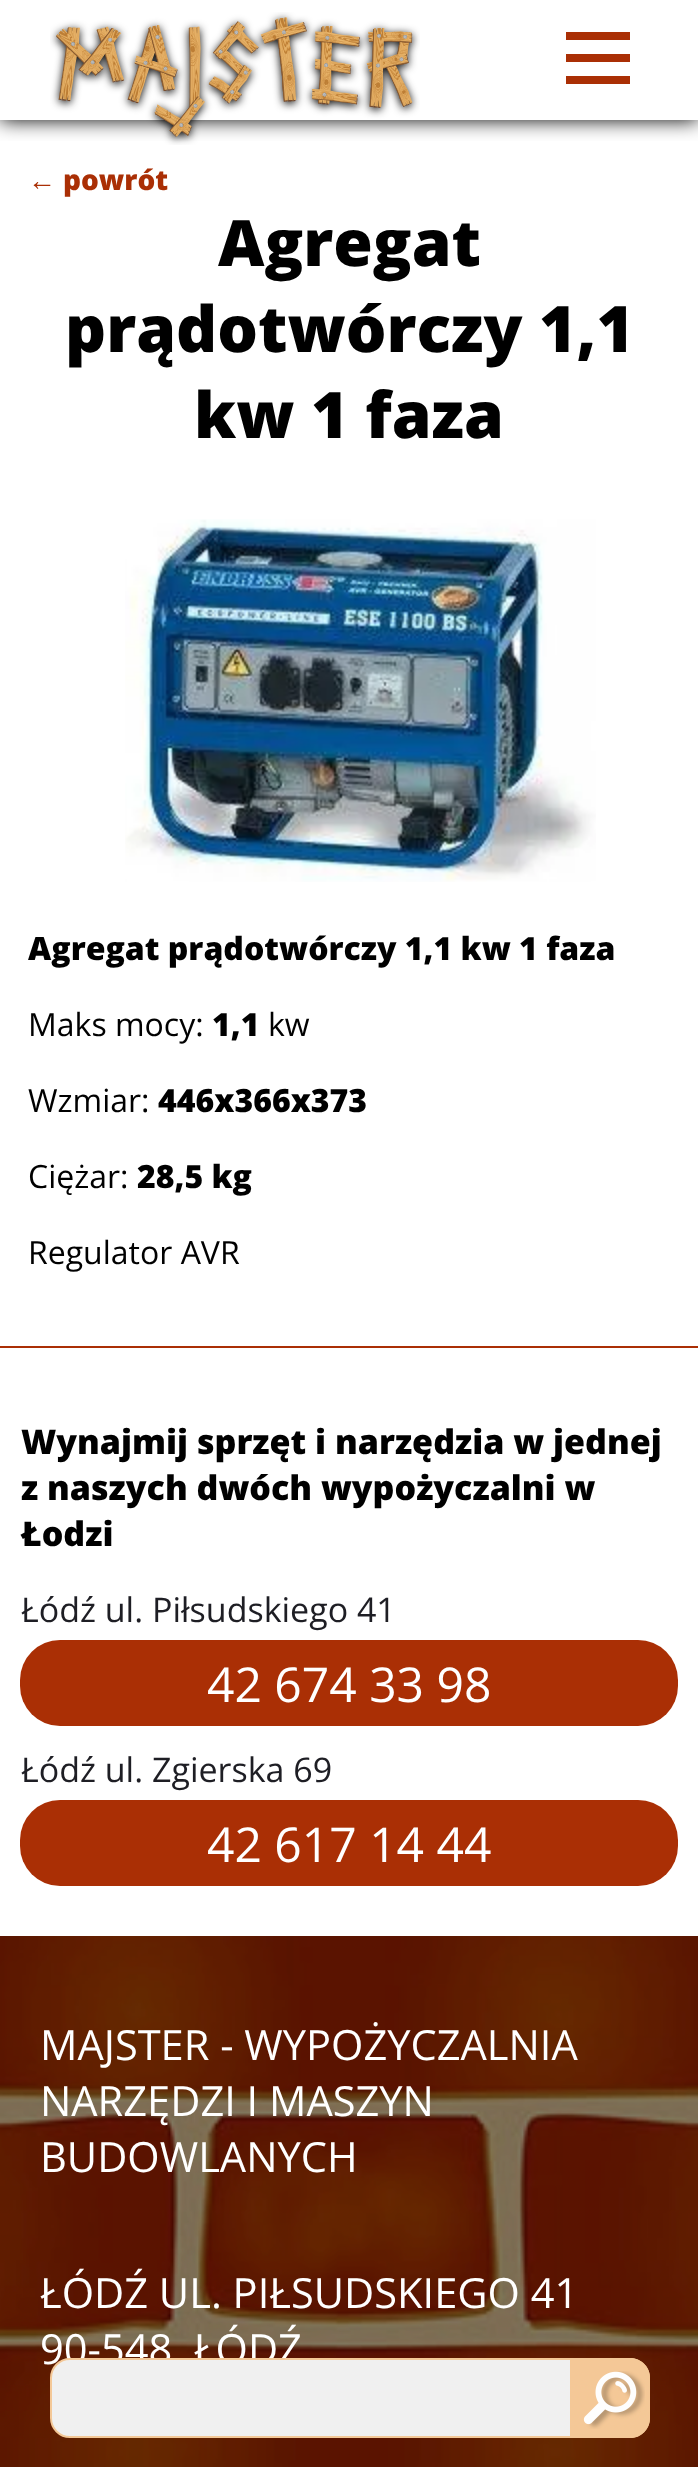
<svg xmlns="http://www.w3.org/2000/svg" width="698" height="2467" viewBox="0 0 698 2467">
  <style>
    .t1 { font: 41.6px Open Sans; fill: #fff; }
    .t2 { font: bold 28px Liberation Sans; fill: #aa2f05; }
    .t3 { font: 800 28px Open Sans; fill: #aa2f05; }
    .t4 { font: 800 64px Open Sans; fill: #000; }
    .t5 { font: 800 32px Open Sans; fill: #000; }
    .t6 { font: 32px Open Sans; fill: #000; }
    .t7 { font: 800 34px Open Sans; fill: #000; }
    .t8 { font: 34px Open Sans; fill: #1e1e24; }
    .t9 { font: 48px Open Sans; fill: #fff; }
  </style>
  <defs>
    <clipPath id="clip1"><rect x="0" y="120" width="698" height="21"/></clipPath>
  </defs>
  <rect width="100%" height="100%" fill="#fff"/>
  <g clip-path="url(#clip1)">
    <rect x="0" y="0" width="698" height="120" fill="#000" filter="blur(10px)"/>
  </g>
  <image x="50" y="12" width="370" height="133" href="images/1.png"/>
  <rect x="566" y="32" width="64" height="8" fill="#aa2f05"/>
  <rect x="566" y="54" width="64" height="8" fill="#aa2f05"/>
  <rect x="566" y="76" width="64" height="8" fill="#aa2f05"/>
  <image x="0" y="1936" width="698" height="531" href="images/4.png"/>
  <text x="40" y="2364" class="t1">90-548, ŁÓDŹ</text>
  <rect x="51" y="2359" width="598" height="78" rx="19" fill="#f0f0f0" stroke="#f4c897" stroke-width="2"/>
  <path d="M570 2358H630C641 2358 650 2367 650 2378V2418C650 2429 641 2438 630 2438H570Z" fill="#f4c897"/>
  <image x="583" y="2371" width="62" height="58" href="images/2.png"/>
  <rect x="0" y="1346" width="698" height="2" fill="#aa2f05"/>
  <text x="28" y="190" class="t2">←</text>
  <text x="63" y="190" class="t3">powrót</text>
  <text x="218" y="266" class="t4">Agregat</text>
  <text x="65" y="352" class="t4">prądotwórczy 1,1</text>
  <text x="194" y="438" class="t4">kw 1 faza</text>
  <image x="125" y="519" width="471" height="363" href="images/3.png"/>
  <text x="28" y="960" class="t5">Agregat prądotwórczy 1,1 kw 1 faza</text>
  <text x="28" y="1036" class="t6">Maks mocy:</text>
  <text x="212" y="1036" class="t5">1,1</text>
  <text x="268" y="1036" class="t6">kw</text>
  <text x="28" y="1112" class="t6">Wzmiar:</text>
  <text x="158" y="1112" class="t5">446x366x373</text>
  <text x="28" y="1188" class="t6">Ciężar:</text>
  <text x="137" y="1188" class="t5">28,5 kg</text>
  <text x="28" y="1264" class="t6">Regulator AVR</text>
  <text x="21" y="1454" class="t7">Wynajmij sprzęt i narzędzia w jednej</text>
  <text x="21" y="1500" class="t7">z naszych dwóch wypożyczalni w</text>
  <text x="21" y="1546" class="t7">Łodzi</text>
  <text x="21" y="1622" class="t8">Łódź ul. Piłsudskiego 41</text>
  <rect x="20" y="1640" width="658" height="86" rx="40" fill="#aa2f05"/>
  <text x="207" y="1702" class="t9">42 674 33 98</text>
  <text x="21" y="1782" class="t8">Łódź ul. Zgierska 69</text>
  <rect x="20" y="1800" width="658" height="86" rx="40" fill="#aa2f05"/>
  <text x="207" y="1862" class="t9">42 617 14 44</text>
  <text x="40" y="2060" class="t1">MAJSTER - WYPOŻYCZALNIA</text>
  <text x="40" y="2116" class="t1">NARZĘDZI I MASZYN</text>
  <text x="40" y="2172" class="t1">BUDOWLANYCH</text>
  <text x="40" y="2308" class="t1">ŁÓDŹ UL. PIŁSUDSKIEGO 41</text>
</svg>
